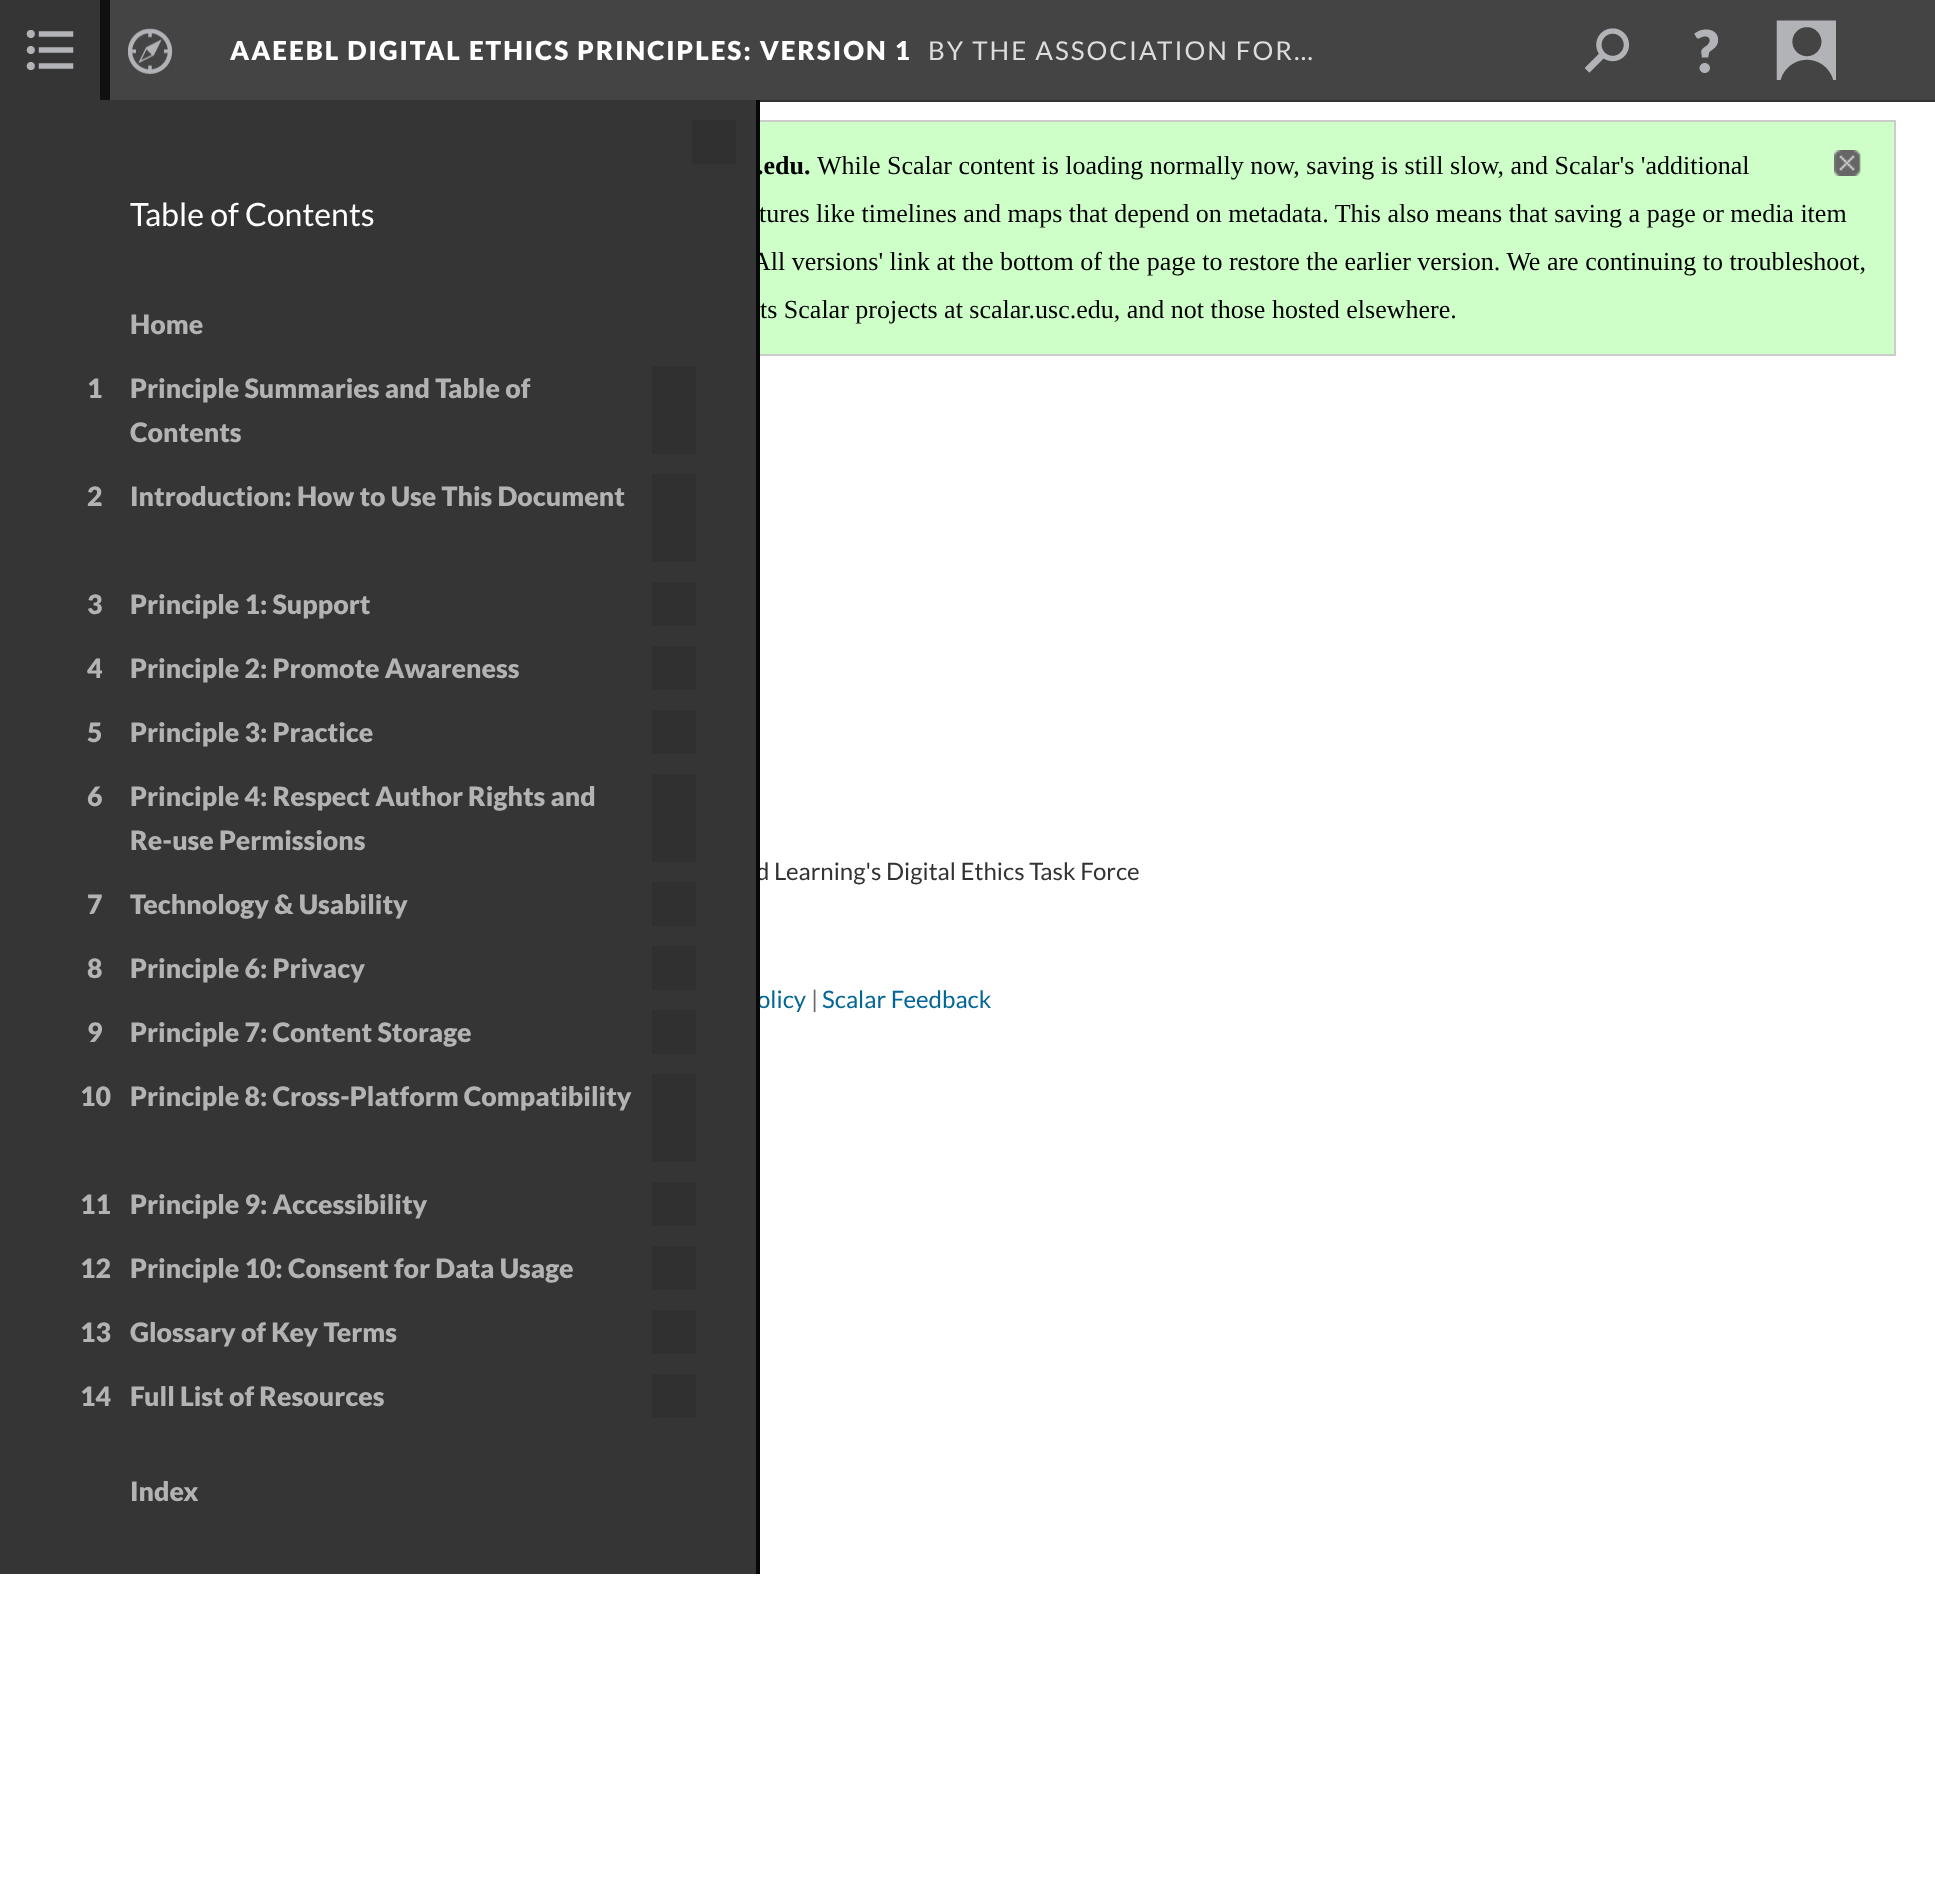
<svg xmlns="http://www.w3.org/2000/svg" width="1935" height="1894" viewBox="0 0 1935 1894">
  <style>
    .t1 { font: 900 26px Lato; letter-spacing: 2px; fill: #fff; }
    .t2 { font: 26px Lato; letter-spacing: 2px; fill: #dddddf; }
    .t3 { font: 26px Liberation Serif; fill: #000; }
    .t4 { font: bold 26px Liberation Serif; fill: #000; }
    .t5 { font: 24px Lato; fill: #333; }
    .t6 { font: 24px Lato; fill: #026697; }
    .t7 { font: 32px Lato; fill: #fff; }
    .t8 { font: 900 26.7px Lato; fill: #b3b3b3; }
    .t9 { font: 24px Lato; fill: #666; }
  </style>
  <rect width="100%" height="100%" fill="#fff"/>
  <rect x="110" y="0" width="1825" height="100" fill="#444"/>
  <rect x="760" y="100" width="1175" height="2" fill="#333"/>
  <text x="230" y="60" class="t1">AAEEBL DIGITAL ETHICS PRINCIPLES: VERSION 1</text>
  <text x="928" y="60" class="t2">BY THE ASSOCIATION FOR…</text>
  <image x="1584" y="28" width="45" height="45" href="images/1.png"/>
  <image x="1694" y="29" width="25" height="44" href="images/2.png"/>
  <image x="1776" y="20" width="60" height="60" href="images/3.png"/>
  <image x="128" y="28" width="45" height="46" href="images/4.png"/>
  <rect x="0" y="0" width="100" height="100" fill="#353535"/>
  <image x="26" y="30" width="48" height="40" href="images/5.png"/>
  <rect x="-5" y="-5" width="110" height="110" fill="none" stroke="#101010" stroke-width="10"/>
  <rect x="760" y="122" width="1134" height="232" fill="#ceffc8"/>
  <rect x="21" y="121" width="1874" height="234" fill="none" stroke="#ccc" stroke-width="2"/>
  <text x="752" y="270" class="t3">All versions' link at the bottom of the page to restore the earlier version. We are continuing to troubleshoot,</text>
  <rect x="0" y="100" width="756" height="1474" fill="#353535"/>
  <text x="757" y="174" class="t4">.edu.</text>
  <text x="759" y="222" class="t3">tures like timelines and maps that depend on metadata. This also means that saving a page or media item</text>
  <text x="760" y="318" class="t3">ts Scalar projects at scalar.usc.edu, and not those hosted elsewhere.</text>
  <text x="756" y="880" class="t5">d Learning's Digital Ethics Task Force</text>
  <text x="757" y="1008" class="t6">olicy</text>
  <rect x="756" y="100" width="4" height="1474" fill="#070707"/>
  <rect x="692" y="120" width="44" height="44" fill="#303030"/>
  <text x="130" y="226" class="t7">Table of Contents</text>
  <text x="130" y="334" class="t8">Home</text>
  <text x="87" y="398" class="t8">1</text>
  <text x="130" y="398" class="t8">Principle Summaries and Table of</text>
  <text x="130" y="442" class="t8">Contents</text>
  <rect x="652" y="366" width="44" height="88" fill="#303030"/>
  <text x="87" y="506" class="t8">2</text>
  <text x="130" y="506" class="t8">Introduction: How to Use This Document</text>
  <rect x="652" y="474" width="44" height="88" fill="#303030"/>
  <text x="87" y="614" class="t8">3</text>
  <text x="130" y="614" class="t8">Principle 1: Support</text>
  <rect x="652" y="582" width="44" height="44" fill="#303030"/>
  <text x="87" y="678" class="t8">4</text>
  <text x="130" y="678" class="t8">Principle 2: Promote Awareness</text>
  <rect x="652" y="646" width="44" height="44" fill="#303030"/>
  <text x="87" y="742" class="t8">5</text>
  <text x="130" y="742" class="t8">Principle 3: Practice</text>
  <rect x="652" y="710" width="44" height="44" fill="#303030"/>
  <text x="87" y="806" class="t8">6</text>
  <text x="130" y="806" class="t8">Principle 4: Respect Author Rights and</text>
  <text x="130" y="850" class="t8">Re-use Permissions</text>
  <rect x="652" y="774" width="44" height="88" fill="#303030"/>
  <text x="87" y="914" class="t8">7</text>
  <text x="130" y="914" class="t8">Technology &amp; Usability</text>
  <rect x="652" y="882" width="44" height="44" fill="#303030"/>
  <text x="87" y="978" class="t8">8</text>
  <text x="130" y="978" class="t8">Principle 6: Privacy</text>
  <rect x="652" y="946" width="44" height="44" fill="#303030"/>
  <text x="87" y="1042" class="t8">9</text>
  <text x="130" y="1042" class="t8">Principle 7: Content Storage</text>
  <rect x="652" y="1010" width="44" height="44" fill="#303030"/>
  <text x="80" y="1106" class="t8">10</text>
  <text x="130" y="1106" class="t8">Principle 8: Cross-Platform Compatibility</text>
  <rect x="652" y="1074" width="44" height="88" fill="#303030"/>
  <text x="80" y="1214" class="t8">11</text>
  <text x="130" y="1214" class="t8">Principle 9: Accessibility</text>
  <rect x="652" y="1182" width="44" height="44" fill="#303030"/>
  <text x="80" y="1278" class="t8">12</text>
  <text x="130" y="1278" class="t8">Principle 10: Consent for Data Usage</text>
  <rect x="652" y="1246" width="44" height="44" fill="#303030"/>
  <text x="80" y="1342" class="t8">13</text>
  <text x="130" y="1342" class="t8">Glossary of Key Terms</text>
  <rect x="652" y="1310" width="44" height="44" fill="#303030"/>
  <text x="80" y="1406" class="t8">14</text>
  <text x="130" y="1406" class="t8">Full List of Resources</text>
  <rect x="652" y="1374" width="44" height="44" fill="#303030"/>
  <text x="130" y="1501" class="t8">Index</text>
  <text x="817" y="174" class="t3">While Scalar content is loading normally now, saving is still slow, and Scalar's 'additional</text>
  <image x="1834" y="150" width="27" height="26" href="images/6.png"/>
  <text x="811" y="1008" class="t9">|</text>
  <text x="822" y="1008" class="t6">Scalar Feedback</text>
</svg>
